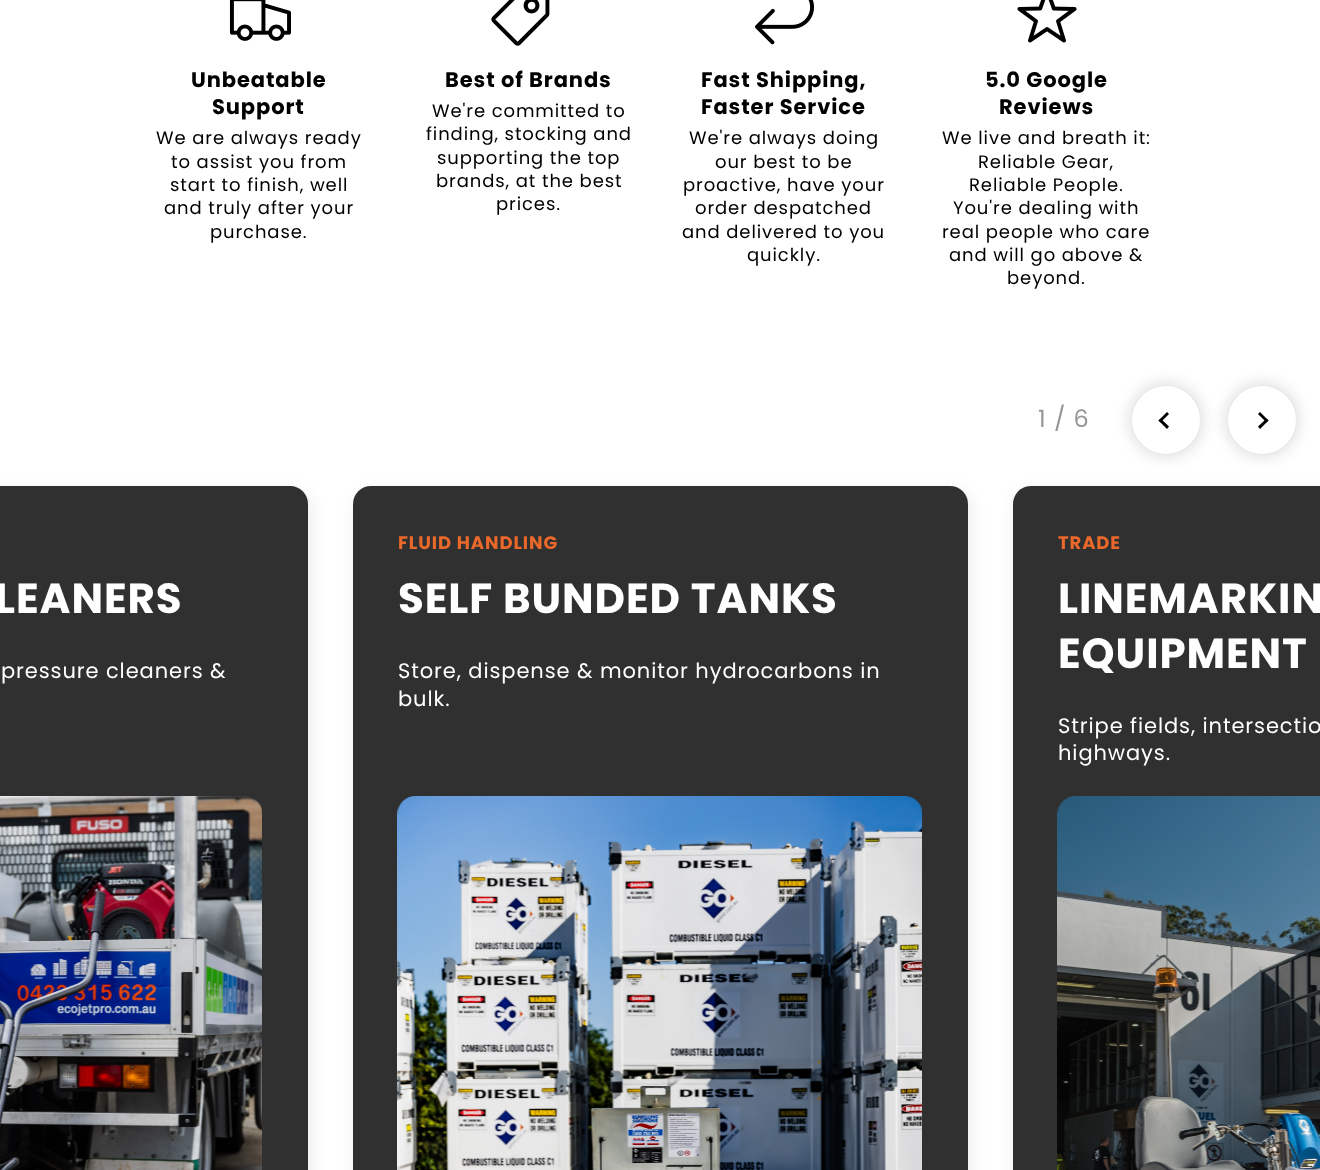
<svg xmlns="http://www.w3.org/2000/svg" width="1320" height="1170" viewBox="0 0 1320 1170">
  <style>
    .t1 { font: bold 21px Poppins; letter-spacing: 0.9px; fill: #000; }
    .t2 { font: 18px Poppins; letter-spacing: 0.9px; fill: #000; }
    .t3 { font: 24px Poppins; letter-spacing: 0.9px; fill: #969696; }
    .t4 { font: bold 42px Poppins; letter-spacing: 0.9px; fill: #fff; }
    .t5 { font: 21px Poppins; letter-spacing: 0.9px; fill: #fff; }
    .t6 { font: bold 18px Poppins; letter-spacing: 0.9px; fill: #ea682a; }
  </style>
  <defs>
    <clipPath id="clip1"><path d="M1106 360H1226V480H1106ZM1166 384C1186 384 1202 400 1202 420C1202 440 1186 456 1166 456C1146 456 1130 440 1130 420C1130 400 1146 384 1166 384Z" clip-rule="evenodd"/></clipPath>
    <clipPath id="clip2"><path d="M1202 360H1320V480H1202ZM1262 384C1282 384 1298 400 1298 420C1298 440 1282 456 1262 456C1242 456 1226 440 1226 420C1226 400 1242 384 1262 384Z" clip-rule="evenodd"/></clipPath>
  </defs>
  <rect width="100%" height="100%" fill="#fff"/>
  <image x="229" y="0" width="62" height="41" href="images/1.png"/>
  <text x="191" y="87" class="t1">Unbeatable</text>
  <text x="212" y="114" class="t1">Support</text>
  <text x="156" y="144" class="t2">We are always ready</text>
  <text x="171" y="168" class="t2">to assist you from</text>
  <text x="170" y="191" class="t2">start to finish, well</text>
  <text x="164" y="214" class="t2">and truly after your</text>
  <text x="210" y="238" class="t2">purchase.</text>
  <image x="491" y="0" width="59" height="46" href="images/2.png"/>
  <text x="445" y="87" class="t1">Best of Brands</text>
  <text x="432" y="117" class="t2">We're committed to</text>
  <text x="426" y="140" class="t2">finding, stocking and</text>
  <text x="437" y="164" class="t2">supporting the top</text>
  <text x="436" y="187" class="t2">brands, at the best</text>
  <text x="496" y="210" class="t2">prices.</text>
  <image x="755" y="0" width="59" height="45" href="images/3.png"/>
  <text x="701" y="87" class="t1">Fast Shipping,</text>
  <text x="701" y="114" class="t1">Faster Service</text>
  <text x="689" y="144" class="t2">We're always doing</text>
  <text x="715" y="168" class="t2">our best to be</text>
  <text x="683" y="191" class="t2">proactive, have your</text>
  <text x="695" y="214" class="t2">order despatched</text>
  <text x="682" y="238" class="t2">and delivered to you</text>
  <text x="747" y="261" class="t2">quickly.</text>
  <image x="1017" y="0" width="60" height="43" href="images/4.png"/>
  <text x="985" y="87" class="t1">5.0 Google</text>
  <text x="999" y="114" class="t1">Reviews</text>
  <text x="942" y="144" class="t2">We live and breath it:</text>
  <text x="978" y="168" class="t2">Reliable Gear,</text>
  <text x="969" y="191" class="t2">Reliable People.</text>
  <text x="953" y="214" class="t2">You're dealing with</text>
  <text x="942" y="238" class="t2">real people who care</text>
  <text x="949" y="261" class="t2">and will go above &amp;</text>
  <text x="1007" y="284" class="t2">beyond.</text>
  <text x="1038" y="427" class="t3">1 / 6</text>
  <g clip-path="url(#clip1)">
    <rect x="1130" y="384" width="72" height="72" rx="36" fill="#00000026" filter="blur(7.5px)"/>
  </g>
  <circle cx="1166" cy="420" r="35" fill="none" stroke="#eaeaea" stroke-width="2"/>
  <path d="M1160.5 418.5L1169 426.5L1167 429L1158.5 420.5Z" fill="#000"/>
  <path d="M1167 412L1169 414L1160.5 422.5L1158.5 420.5Z" fill="#000"/>
  <g clip-path="url(#clip2)">
    <rect x="1226" y="384" width="72" height="72" rx="36" fill="#00000026" filter="blur(7.5px)"/>
  </g>
  <circle cx="1262" cy="420" r="35" fill="none" stroke="#eaeaea" stroke-width="2"/>
  <path d="M1260 412L1268.5 420.5L1266.5 422.5L1258 414Z" fill="#000"/>
  <path d="M1266.5 418.5L1268.5 420.5L1260 429L1258 426.5Z" fill="#000"/>
  <rect x="-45" y="492" width="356" height="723" rx="18" fill="#00000014" filter="blur(9px)"/>
  <path d="M0 486H290C300 486 308 494 308 504V1170C308 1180 300 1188 290 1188H0Z" fill="#303030"/>
  <text x="-5" y="613" class="t4">LEANERS</text>
  <text x="1" y="678" class="t5">pressure cleaners &amp;</text>
  <image x="0" y="796" width="262" height="374" href="images/5.png"/>
  <rect x="356" y="492" width="615" height="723" rx="18" fill="#00000014" filter="blur(9px)"/>
  <rect x="353" y="486" width="615" height="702" rx="18" fill="#303030"/>
  <text x="398" y="549" class="t6">FLUID HANDLING</text>
  <text x="398" y="613" class="t4">SELF BUNDED TANKS</text>
  <text x="398" y="678" class="t5">Store, dispense &amp; monitor hydrocarbons in</text>
  <text x="398" y="706" class="t5">bulk.</text>
  <image x="397" y="796" width="525" height="374" href="images/6.png"/>
  <rect x="1016" y="492" width="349" height="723" rx="18" fill="#00000014" filter="blur(9px)"/>
  <path d="M1031 486H1320V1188H1031C1021 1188 1013 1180 1013 1170V504C1013 494 1021 486 1031 486Z" fill="#303030"/>
  <text x="1058" y="549" class="t6">TRADE</text>
  <text x="1058" y="613" class="t4">LINEMARKIN</text>
  <text x="1058" y="668" class="t4">EQUIPMENT</text>
  <text x="1058" y="733" class="t5">Stripe fields, intersectio</text>
  <text x="1058" y="760" class="t5">highways.</text>
  <image x="1057" y="796" width="263" height="374" href="images/7.png"/>
</svg>
